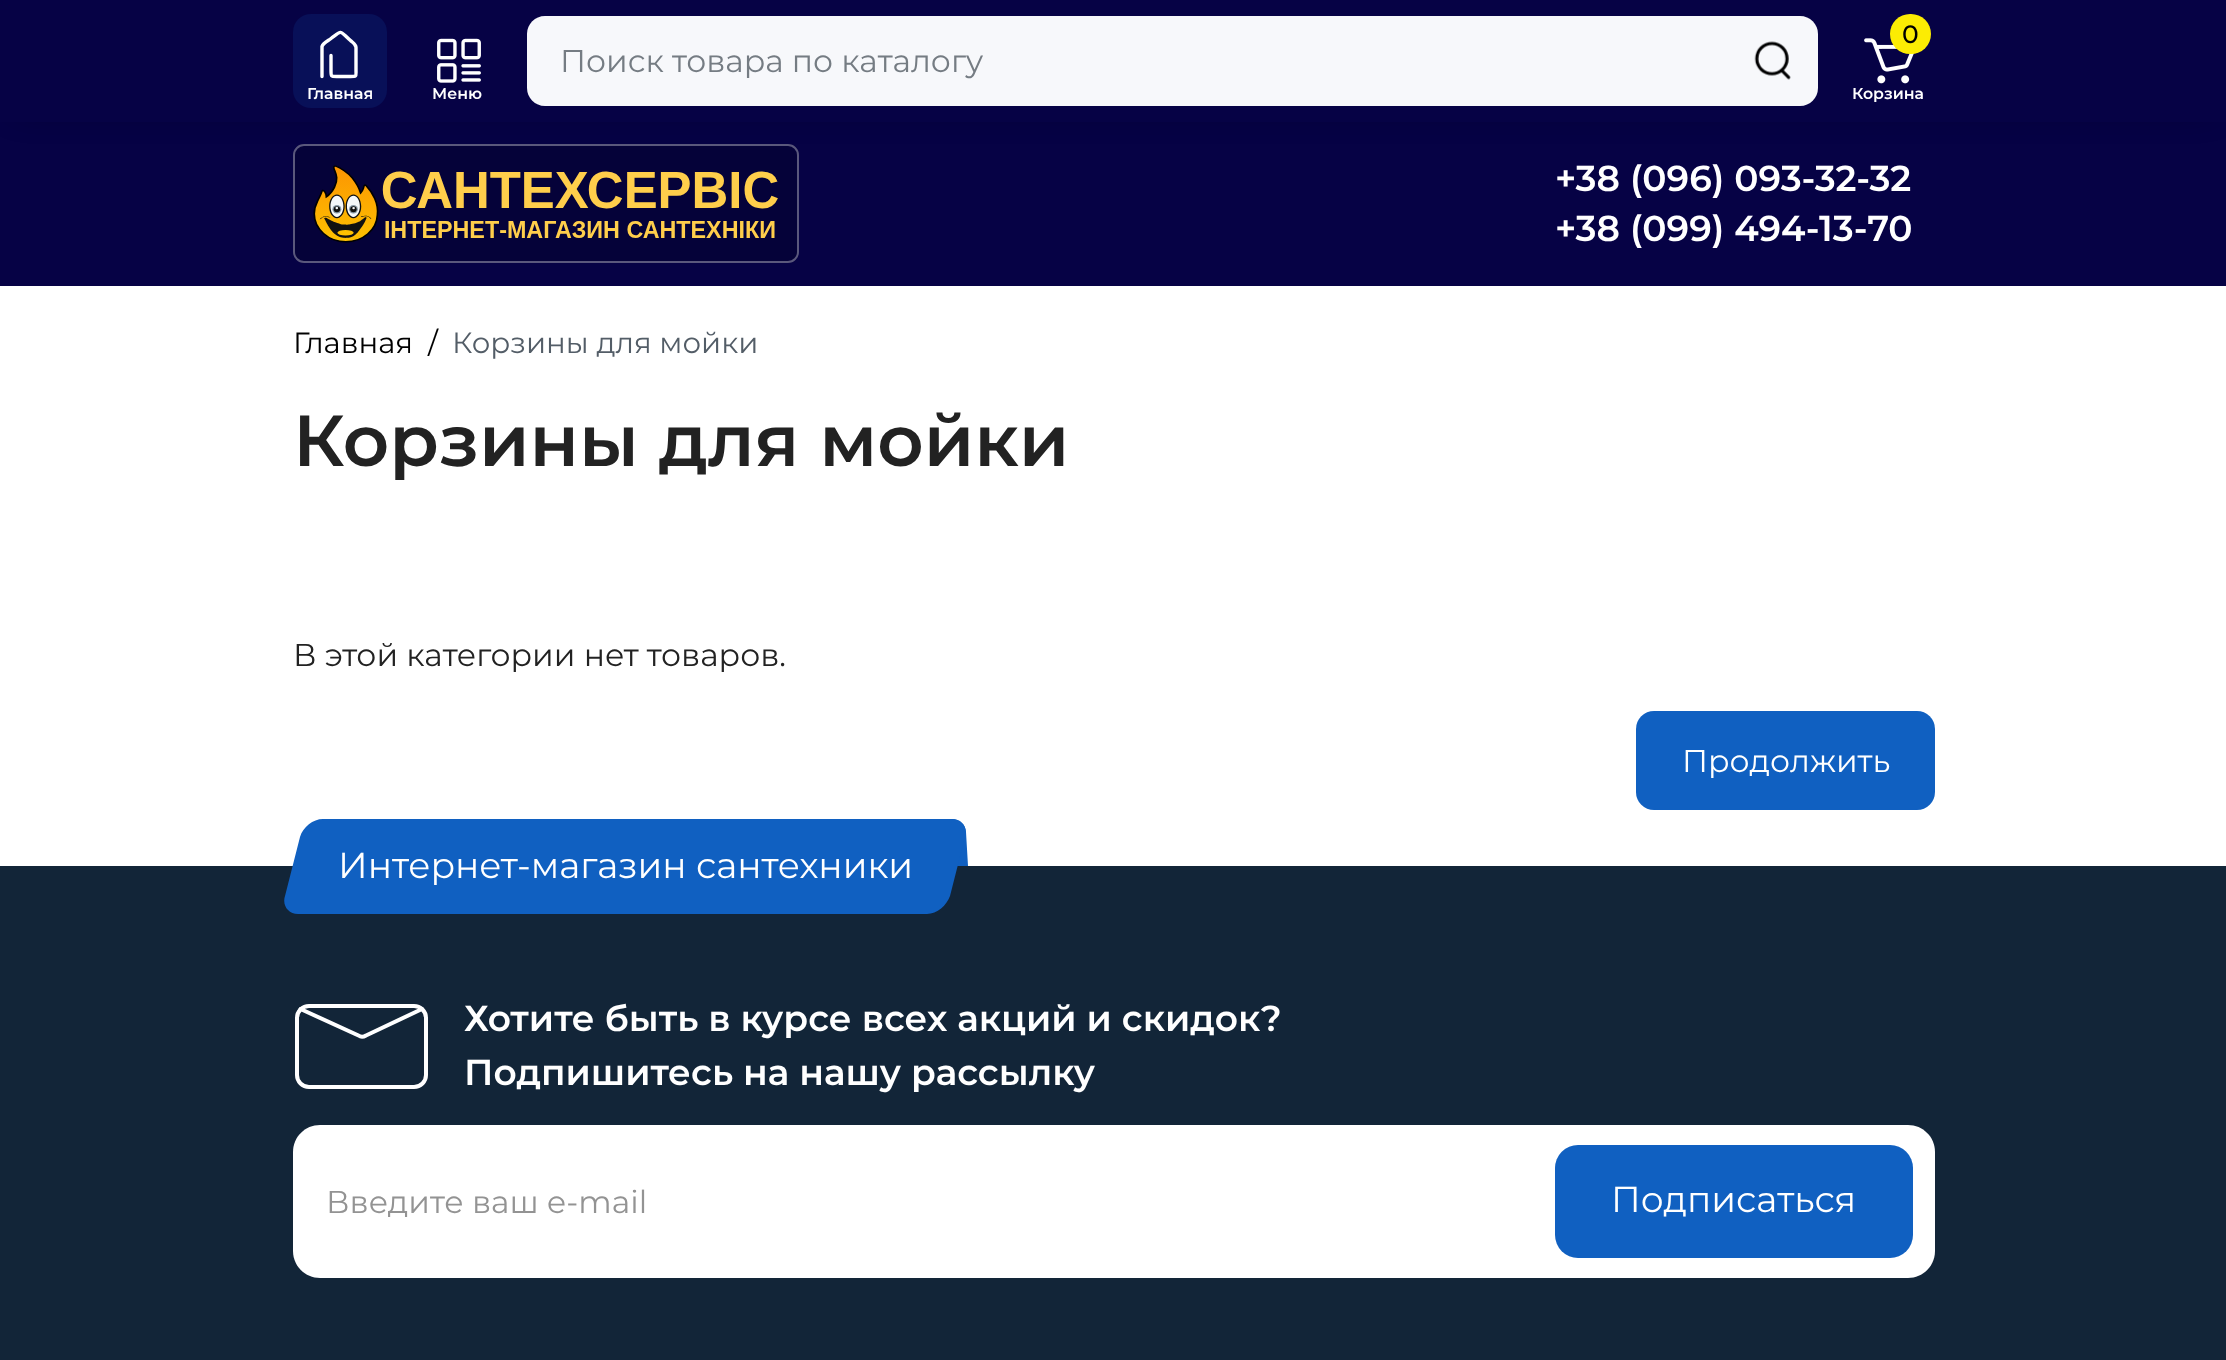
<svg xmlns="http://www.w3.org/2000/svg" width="2226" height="1360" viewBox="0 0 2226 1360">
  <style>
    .t1 { font: 31.5px Montserrat; fill: #757c83; }
    .t2 { font: 500 25px Montserrat; fill: #000; }
    .t3 { font: 600 15.75px Montserrat; fill: #fff; }
    .t4 { font: 600 36px Montserrat; fill: #fff; }
    .t5 { font: 29.25px Montserrat; fill: #000; }
    .t6 { font: 29.25px Montserrat; fill: #535d67; }
    .t7 { font: 600 72px Montserrat; fill: #222; }
    .t8 { font: 31.5px Montserrat; fill: #222; }
    .t9 { font: 31.5px Montserrat; fill: #fff; }
    .t10 { font: 36px Montserrat; fill: #fff; }
    .t11 { font: 31.5px Montserrat; fill: #939393; }
  </style>
  <rect width="100%" height="100%" fill="#fff"/>
  <rect x="0" y="122" width="2226" height="164" fill="#060245"/>
  <rect x="293" y="144" width="506" height="119" rx="11" fill="#050239"/>
  <rect x="294" y="145" width="504" height="117" rx="10" fill="none" stroke="#ffffff57" stroke-width="2"/>
  <rect x="16" y="16" width="2196" height="90" fill="#00000066" filter="blur(17px)"/>
  <rect x="0" y="0" width="2226" height="122" fill="#060245"/>
  <path d="M545 16H1739V106H545C535 106 527 98 527 88V34C527 24 535 16 545 16Z" fill="#f7f8fb"/>
  <text x="560" y="72" class="t1">Поиск товара по каталогу</text>
  <path d="M1739 16H1800C1810 16 1818 24 1818 34V88C1818 98 1810 106 1800 106H1739Z" fill="#f7f8fb"/>
  <image x="1754" y="41" width="37" height="39" href="images/1.png"/>
  <image x="1864" y="38" width="50" height="46" href="images/2.png"/>
  <rect x="1890" y="14" width="41" height="40" rx="20" fill="#fcec03"/>
  <text x="1902" y="43" class="t2">0</text>
  <text x="1852" y="99" class="t3">Корзина</text>
  <rect x="293" y="14" width="94" height="94" rx="18" fill="#081058"/>
  <path d="M322 76.5V46.5C323 43 328.5 40.5 331 38.5C343 29.5 339 30.5 350.5 40.5C352.5 42.5 356 44 356 47.5V70C356 76.5 357 76.5 350.5 76.5H336.5C331 76.5 331 76.5 331 71V55.5" fill="none" stroke="#fff" stroke-width="3.4" stroke-linecap="round"/>
  <text x="307" y="99" class="t3">Главная</text>
  <image x="437" y="38" width="44" height="45" href="images/3.png"/>
  <text x="432" y="99" class="t3">Меню</text>
  <image x="313" y="165" width="465" height="78" href="images/4.png"/>
  <text x="1555" y="191" class="t4">+38 (096) 093-32-32</text>
  <text x="1555" y="241" class="t4">+38 (099) 494-13-70</text>
  <text x="293" y="353" class="t5">Главная</text>
  <text x="428" y="353" class="t5">/</text>
  <text x="452" y="353" class="t6">Корзины для мойки</text>
  <text x="293" y="466" class="t7">Корзины для мойки</text>
  <text x="293" y="666" class="t8">В этой категории нет товаров.</text>
  <rect x="1636" y="711" width="299" height="99" rx="18" fill="#1060c1"/>
  <text x="1682" y="772" class="t9">Продолжить</text>
  <path d="M916 819H952C959 819 966 825 966 832L968 866H932C924 866 918 860 918 853Z" fill="#1060c1"/>
  <rect x="0" y="866" width="2226" height="494" fill="#122538"/>
  <path d="M323 819H952C962 819 968 827 965 837L950 896C947 905 937 914 927 914H298C288 914 282 905 285 896L300 837C303 827 313 819 323 819Z" fill="#1060c1"/>
  <text x="338" y="878" class="t10">Интернет-магазин сантехники</text>
  <rect x="297" y="1006" width="129" height="81" rx="12" fill="none" stroke="#fff" stroke-width="4"/>
  <path d="M300.5 1009L358.5 1035.5C360.5 1037 363.5 1037 366 1035.5L422 1009" fill="none" stroke="#fff" stroke-width="4" stroke-linecap="round" stroke-linejoin="round"/>
  <text x="464" y="1031" class="t4">Хотите быть в курсе всех акций и скидок?</text>
  <text x="464" y="1085" class="t4">Подпишитесь на нашу рассылку</text>
  <path d="M320 1125H1557V1278H320C305 1278 293 1266 293 1251V1152C293 1137 305 1125 320 1125Z" fill="#fff"/>
  <text x="326" y="1213" class="t11">Введите ваш e-mail</text>
  <path d="M1557 1125H1908C1923 1125 1935 1137 1935 1152V1251C1935 1266 1923 1278 1908 1278H1557Z" fill="#fff"/>
  <rect x="1555" y="1145" width="358" height="113" rx="23" fill="#1060c1"/>
  <text x="1611" y="1212" class="t10">Подписаться</text>
</svg>
